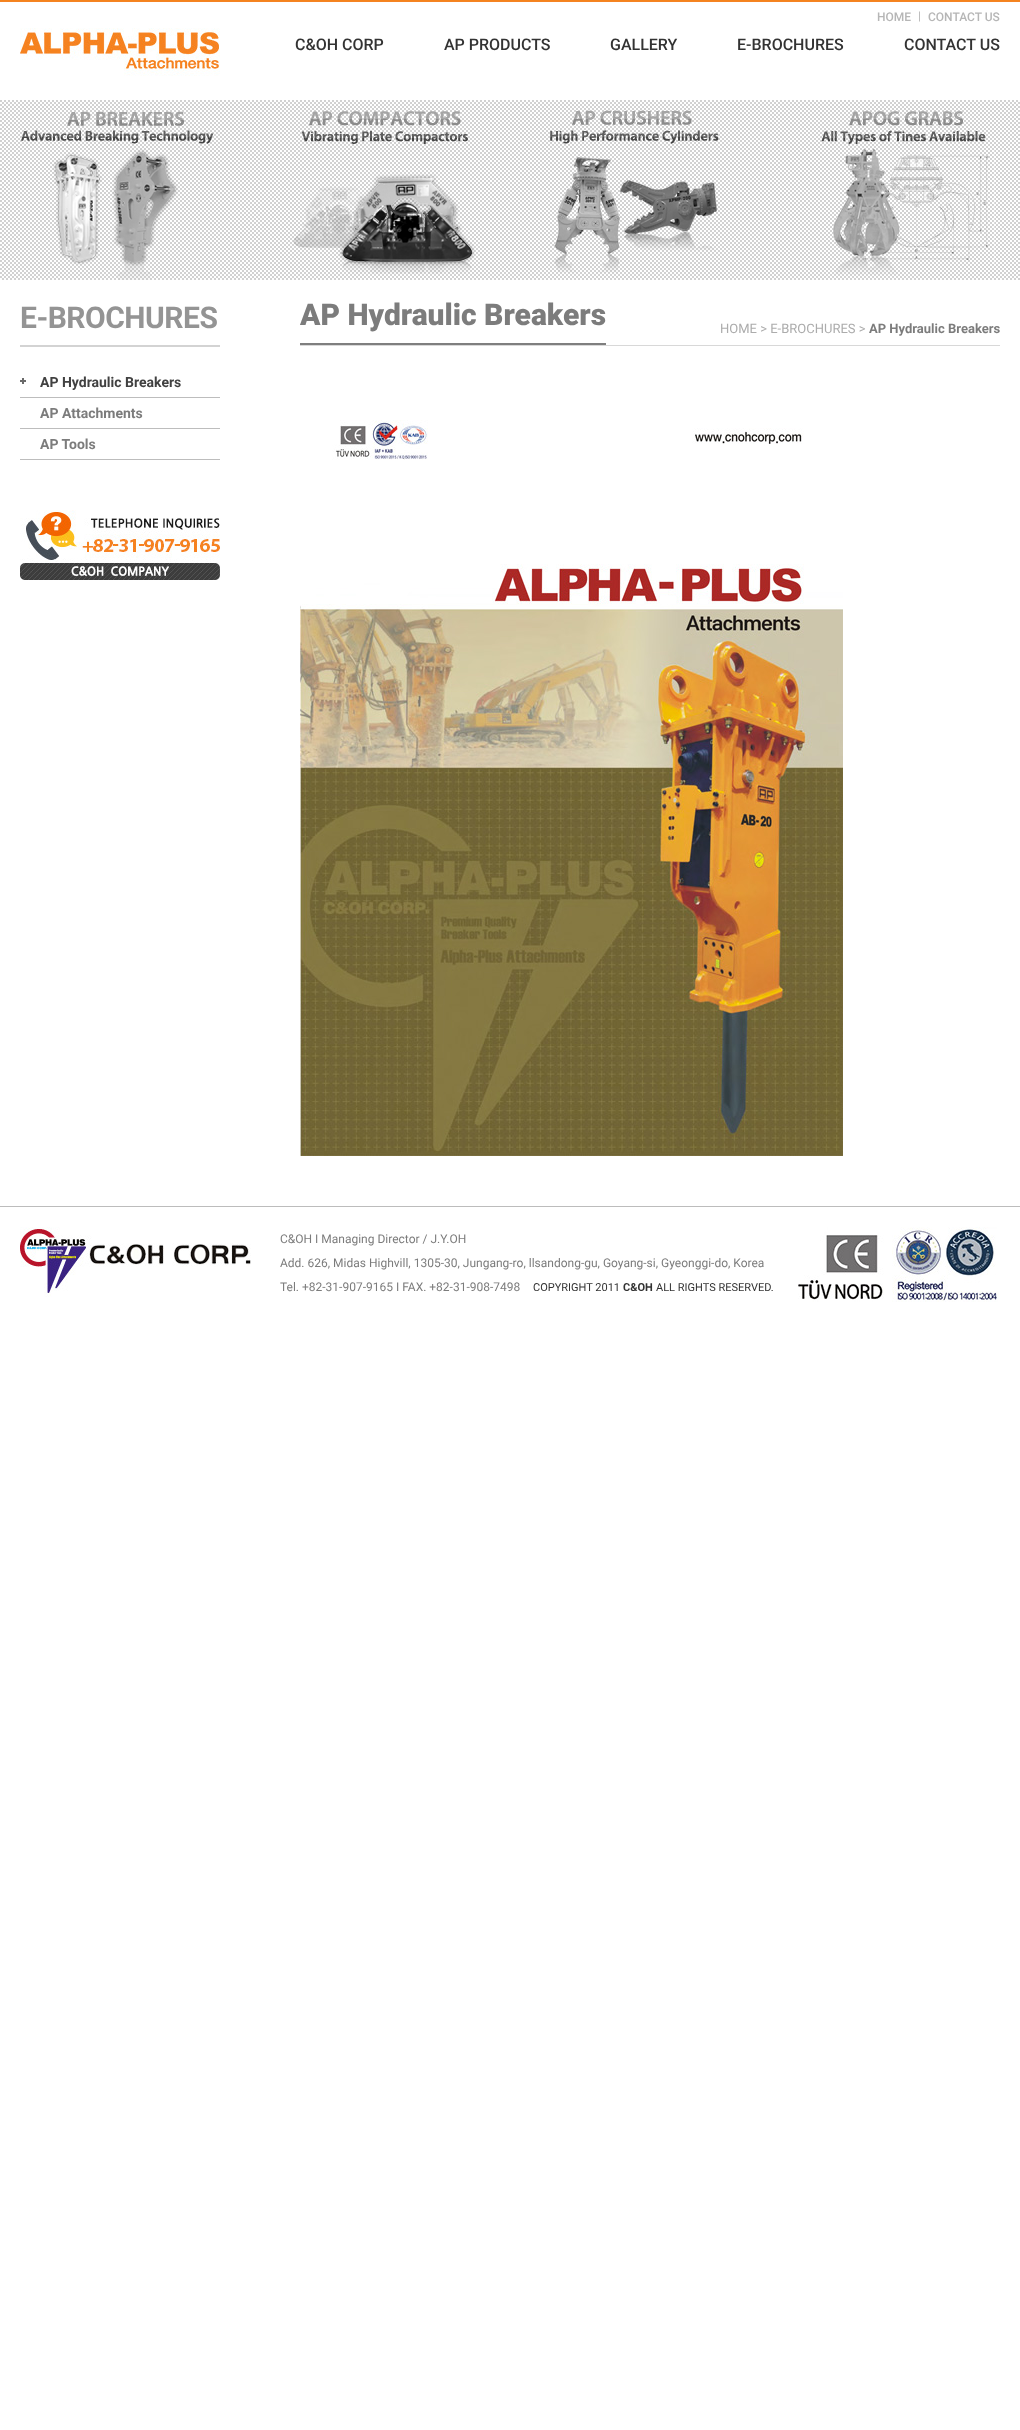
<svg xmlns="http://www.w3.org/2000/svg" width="1020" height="2430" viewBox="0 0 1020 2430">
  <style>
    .t1 { font: 500 12px Roboto; fill: #b6b6b6; }
    .t2 { font: 12px Roboto; fill: #b6b6b6; }
    .t3 { font: 500 16px Roboto; fill: #333; }
    .t4 { font: bold 30px Roboto; letter-spacing: -0.5px; fill: #949494; }
    .t5 { font: bold 14px Roboto; fill: #414141; }
    .t6 { font: bold 14px Roboto; fill: #7c7c7c; }
    .t7 { font: 900 30px Roboto; fill: #7c7c7c; }
    .t8 { font: 13px Roboto; fill: #acacac; }
    .t9 { font: bold 13px Roboto; fill: #7c7c7c; }
    .t10 { font: 12px Roboto; fill: #7c7c7c; }
    .t11 { font: 11px Roboto; fill: #333; }
    .t12 { font: bold 11px Roboto; fill: #333; }
  </style>
  <rect width="100%" height="100%" fill="#fff"/>
  <image x="0" y="0" width="1020" height="2" href="images/1.png"/>
  <text x="877" y="21" class="t1">HOME</text>
  <text x="918" y="20" class="t2">|</text>
  <text x="928" y="21" class="t1">CONTACT US</text>
  <image x="20" y="28" width="200" height="48" href="images/2.png"/>
  <text x="295" y="50" class="t3">C&amp;OH CORP</text>
  <text x="444" y="50" class="t3">AP PRODUCTS</text>
  <text x="610" y="50" class="t3">GALLERY</text>
  <text x="737" y="50" class="t3">E-BROCHURES</text>
  <text x="904" y="50" class="t3">CONTACT US</text>
  <image x="0" y="100" width="1020" height="180" href="images/3.png"/>
  <image x="21" y="111" width="193" height="169" href="images/4.png"/>
  <image x="293" y="111" width="182" height="163" href="images/5.png"/>
  <image x="550" y="110" width="169" height="163" href="images/6.png"/>
  <image x="821" y="111" width="174" height="164" href="images/7.png"/>
  <rect x="20" y="345" width="200" height="2" fill="#d3d3d3"/>
  <text x="20" y="328" class="t4">E-BROCHURES</text>
  <image x="20" y="378" width="6" height="6" href="images/8.png"/>
  <rect x="20" y="397" width="200" height="1" fill="#bdbdbd"/>
  <text x="40" y="387" class="t5">AP Hydraulic Breakers</text>
  <rect x="20" y="428" width="200" height="1" fill="#bdbdbd"/>
  <text x="40" y="418" class="t6">AP Attachments</text>
  <rect x="20" y="459" width="200" height="1" fill="#bdbdbd"/>
  <text x="40" y="449" class="t6">AP Tools</text>
  <image x="20" y="510" width="200" height="70" href="images/9.png"/>
  <rect x="300" y="345" width="700" height="1" fill="#d8d8d8"/>
  <text x="300" y="325" class="t7">AP Hydraulic Breakers</text>
  <rect x="300" y="343" width="306" height="2" fill="#7f7f7f"/>
  <text x="720" y="333" class="t8">HOME &gt; E-BROCHURES &gt;</text>
  <text x="869" y="333" class="t9">AP Hydraulic Breakers</text>
  <image x="300" y="420" width="543" height="736" href="images/10.png"/>
  <rect x="0" y="1206" width="1020" height="1" fill="#bcbcbc"/>
  <image x="20" y="1227" width="231" height="70" href="images/11.png"/>
  <text x="280" y="1243" class="t10">C&amp;OH I Managing Director / J.Y.OH</text>
  <text x="280" y="1267" class="t10">Add. 626, Midas Highvill, 1305-30, Jungang-ro, llsandong-gu, Goyang-si, Gyeonggi-do, Korea</text>
  <text x="280" y="1291" class="t10">Tel. +82-31-907-9165 I FAX. +82-31-908-7498</text>
  <text x="533" y="1291" class="t11">COPYRIGHT 2011</text>
  <text x="623" y="1291" class="t12">C&amp;OH</text>
  <text x="656" y="1291" class="t11">ALL RIGHTS RESERVED.</text>
  <image x="798" y="1227" width="201" height="75" href="images/12.png"/>
</svg>
